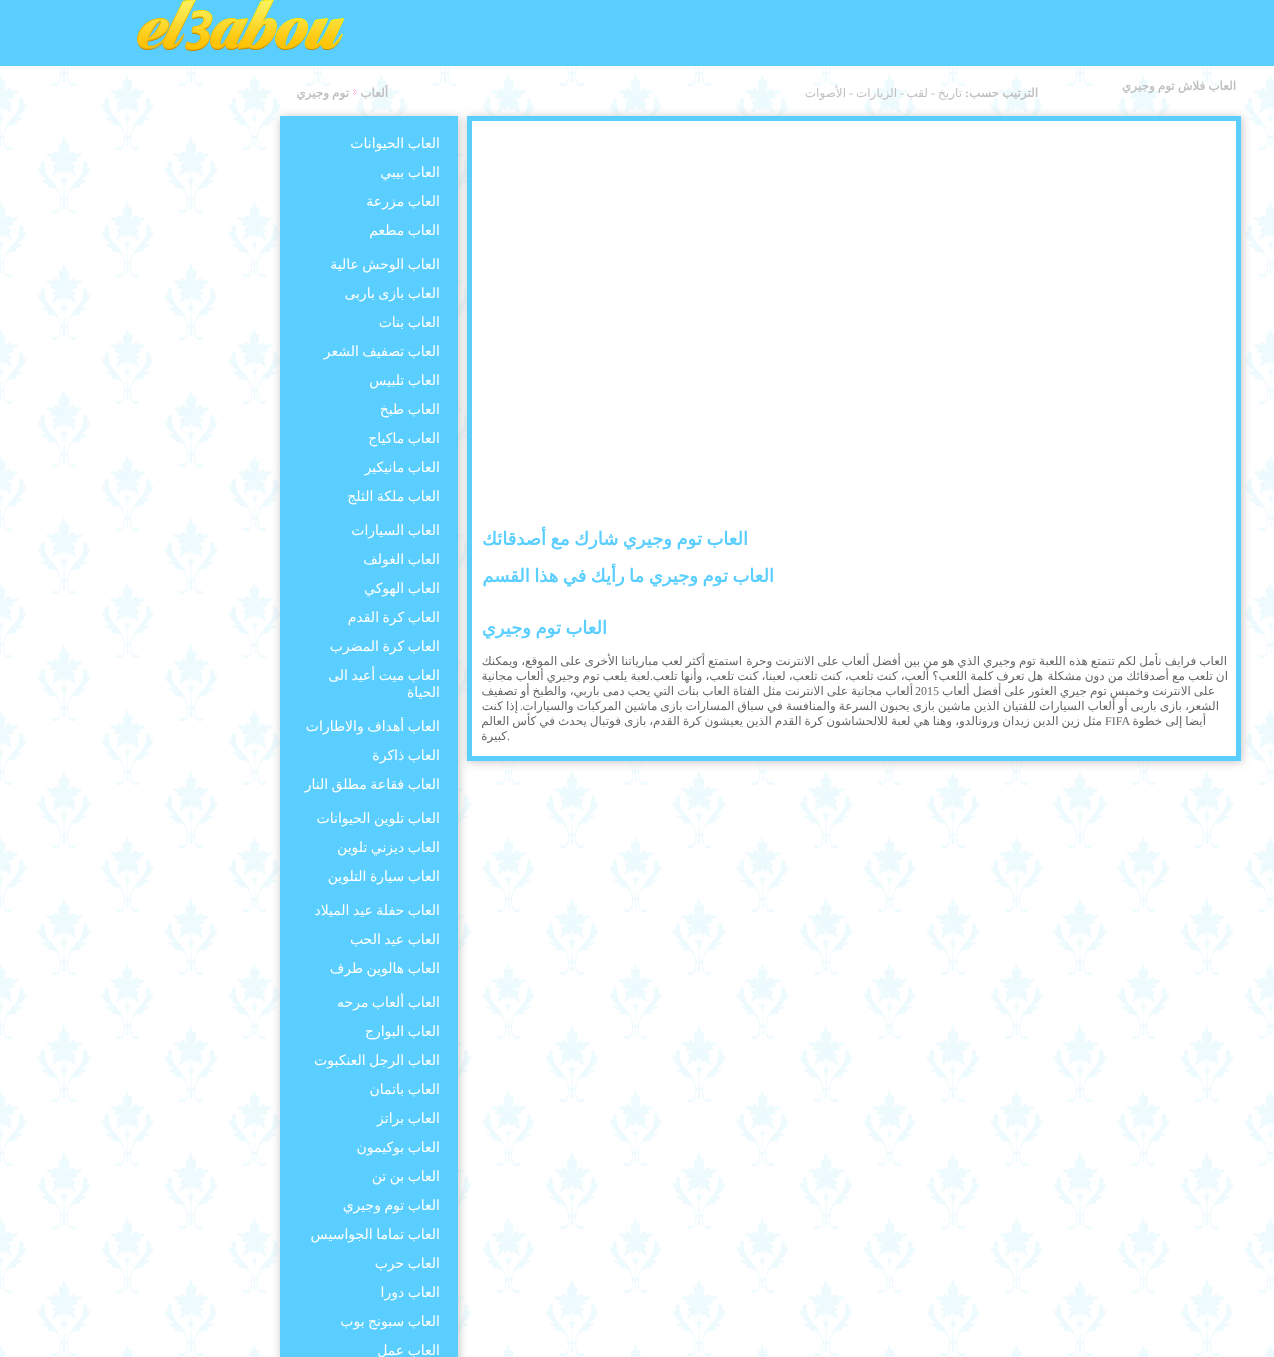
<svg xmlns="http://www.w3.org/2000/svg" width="1274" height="1357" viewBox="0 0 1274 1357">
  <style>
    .t1 { font: bold 12px DejaVu Sans; direction: rtl; fill: #c0c0c0; }
    .t2 { font: bold 18px DejaVu Sans; direction: rtl; fill: #59ceff; }
    .t3 { font: 12px DejaVu Sans; direction: rtl; fill: #666; }
    .t4 { font: 12px Liberation Serif; direction: rtl; fill: #666; }
    .t5 { font: 12px Liberation Serif; fill: #666; }
    .t6 { font: bold 12px Liberation Serif; direction: rtl; fill: #c0c0c0; }
    .t7 { font: 12px DejaVu Sans; direction: rtl; fill: #c0c0c0; }
    .t8 { font: 12px Liberation Serif; fill: #c0c0c0; }
    .t9 { font: 14px DejaVu Sans; direction: rtl; fill: #fff; }
  </style>
  <rect width="100%" height="100%" fill="#fff"/>
  <image x="0" y="66" width="1274" height="1291" href="images/1.png"/>
  <rect x="0" y="0" width="1274" height="66" fill="#59ceff"/>
  <image x="137" y="0" width="207" height="51" href="images/2.png"/>
  <rect x="281" y="117" width="178" height="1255" fill="#c3c3c3" filter="blur(5px)"/>
  <rect x="280" y="116" width="178" height="1241" fill="#59ceff"/>
  <rect x="468" y="117" width="774" height="645" fill="#c3c3c3" filter="blur(5px)"/>
  <rect x="469.5" y="118.5" width="769" height="640" fill="#fff" stroke="#59ceff" stroke-width="5"/>
  <text x="1236" y="90" word-spacing="-0.8" class="t1">العاب فلاش توم وجيري</text>
  <text x="748" y="545" word-spacing="-1.25" class="t2">العاب توم وجيري شارك مع أصدقائك</text>
  <text x="774" y="582" word-spacing="-1.25" class="t2">العاب توم وجيري ما رأيك في هذا القسم</text>
  <text x="607" y="634" word-spacing="-1.25" class="t2">العاب توم وجيري</text>
  <text x="1227" y="665" word-spacing="-0.75" class="t3">العاب فرايف نأمل لكم تتمتع هذه اللعبة توم وجيري الذي هو من بين أفضل ألعاب على الانترنت وحرة</text>
  <text x="742" y="665" word-spacing="-0.75" class="t3">استمتع أكثر لعب مبارياتنا الأخرى على الموقع، ويمكنك</text>
  <text x="1043" y="680" word-spacing="-0.75" class="t3">هل تعرف كلمة اللعب؟ ألعب، كنت تلعب، كنت تلعب، لعبنا، كنت تلعب، وأنها تلعب</text>
  <text x="1228" y="680" word-spacing="-0.75" class="t3">ان تلعب مع أصدقائك من دون مشكلة</text>
  <text x="650" y="680" word-spacing="-0.75" class="t3">لعبة يلعب توم وجيري ألعاب مجانية</text>
  <text x="653" y="680" class="t4">.</text>
  <text x="1215" y="695" word-spacing="-0.8" class="t3">على الانترنت وخميس توم جيري العثور على أفضل ألعاب</text>
  <text x="913" y="695" word-spacing="-0.75" class="t3">ألعاب مجانية على الانترنت مثل الفتاة العاب بنات التي يحب دمى باربي، والطبخ أو تصفيف</text>
  <text x="915" y="695" class="t5">2015</text>
  <text x="1219" y="710" word-spacing="-0.75" class="t3">الشعر، بازی باربی أو ألعاب السيارات للفتيان الذين ماشین بازی يحبون السرعة والمنافسة في سباق المسارات بازی ماشین المركبات والسيارات</text>
  <text x="523" y="710" class="t4">.</text>
  <text x="518" y="710" word-spacing="-0.75" class="t3">إذا كنت</text>
  <text x="1206" y="725" word-spacing="-0.8" class="t3">أيضا إلى خطوة</text>
  <text x="1102" y="725" word-spacing="-0.8" class="t3">مثل زين الدين زيدان ورونالدو، وهنا هي لعبة للالحشاشون كرة القدم الذين يعيشون كرة القدم، بازی فوتبال يحدث في كأس العالم</text>
  <text x="1105" y="725" class="t5">FIFA</text>
  <text x="507" y="740" class="t5">.</text>
  <text x="507" y="740" class="t3">كبيرة</text>
  <text x="388" y="97" class="t1">ألعاب</text>
  <image x="353" y="89" width="4" height="6" href="images/3.png"/>
  <text x="349" y="97" word-spacing="-0.8" class="t1">توم وجيري</text>
  <text x="1038" y="97" word-spacing="-0.8" class="t1">الترتيب حسب</text>
  <text x="969" y="97" class="t6">:</text>
  <text x="962" y="97" class="t7">تاريخ</text>
  <text x="931" y="97" class="t8">-</text>
  <text x="928" y="97" class="t7">لقب</text>
  <text x="900" y="97" class="t8">-</text>
  <text x="897" y="97" class="t7">الزيارات</text>
  <text x="849" y="97" class="t8">-</text>
  <text x="846" y="97" class="t7">الأصوات</text>
  <text x="440" y="148" word-spacing="-1" class="t9">العاب الحيوانات</text>
  <text x="440" y="177" word-spacing="-1" class="t9">العاب بيبي</text>
  <text x="440" y="206" word-spacing="-1" class="t9">العاب مزرعة</text>
  <text x="440" y="235" word-spacing="-1" class="t9">العاب مطعم</text>
  <text x="440" y="269" word-spacing="-1" class="t9">العاب الوحش عالية</text>
  <text x="440" y="298" word-spacing="-1" class="t9">العاب بازی باربی</text>
  <text x="440" y="327" word-spacing="-1" class="t9">العاب بنات</text>
  <text x="440" y="356" word-spacing="-1" class="t9">العاب تصفيف الشعر</text>
  <text x="440" y="385" word-spacing="-1" class="t9">العاب تلبيس</text>
  <text x="440" y="414" word-spacing="-1" class="t9">العاب طبخ</text>
  <text x="440" y="443" word-spacing="-1" class="t9">العاب ماكياج</text>
  <text x="440" y="472" word-spacing="-1" class="t9">العاب مانيكير</text>
  <text x="440" y="501" word-spacing="-1" class="t9">العاب ملكة الثلج</text>
  <text x="440" y="535" word-spacing="-1" class="t9">العاب السيارات</text>
  <text x="440" y="564" word-spacing="-1" class="t9">العاب الغولف</text>
  <text x="440" y="593" word-spacing="-1" class="t9">العاب الهوكي</text>
  <text x="440" y="622" word-spacing="-1" class="t9">العاب كرة القدم</text>
  <text x="440" y="651" word-spacing="-1" class="t9">العاب كرة المضرب</text>
  <text x="440" y="680" word-spacing="-1" class="t9">العاب ميت أعيد الى</text>
  <text x="440" y="697" class="t9">الحياة</text>
  <text x="440" y="731" word-spacing="-1" class="t9">العاب أهداف والاطارات</text>
  <text x="440" y="760" word-spacing="-1" class="t9">العاب ذاكرة</text>
  <text x="440" y="789" word-spacing="-1" class="t9">العاب فقاعة مطلق النار</text>
  <text x="440" y="823" word-spacing="-1" class="t9">العاب تلوين الحيوانات</text>
  <text x="440" y="852" word-spacing="-1" class="t9">العاب ديزني تلوين</text>
  <text x="440" y="881" word-spacing="-1" class="t9">العاب سيارة التلوين</text>
  <text x="440" y="915" word-spacing="-1" class="t9">العاب حفلة عيد الميلاد</text>
  <text x="440" y="944" word-spacing="-1" class="t9">العاب عيد الحب</text>
  <text x="440" y="973" word-spacing="-1" class="t9">العاب هالوين طرف</text>
  <text x="440" y="1007" word-spacing="-1" class="t9">العاب ألعاب مرحه</text>
  <text x="440" y="1036" word-spacing="-1" class="t9">العاب البوارج</text>
  <text x="440" y="1065" word-spacing="-1" class="t9">العاب الرجل العنكبوت</text>
  <text x="440" y="1094" word-spacing="-1" class="t9">العاب باتمان</text>
  <text x="440" y="1123" word-spacing="-1" class="t9">العاب براتز</text>
  <text x="440" y="1152" word-spacing="-1" class="t9">العاب بوكيمون</text>
  <text x="440" y="1181" word-spacing="-1" class="t9">العاب بن تن</text>
  <text x="440" y="1210" word-spacing="-1" class="t9">العاب توم وجيري</text>
  <text x="440" y="1239" word-spacing="-1" class="t9">العاب تماما الجواسيس</text>
  <text x="440" y="1268" word-spacing="-1" class="t9">العاب حرب</text>
  <text x="440" y="1297" word-spacing="-1" class="t9">العاب دورا</text>
  <text x="440" y="1326" word-spacing="-1" class="t9">العاب سبونج بوب</text>
  <text x="440" y="1355" word-spacing="-1" class="t9">العاب عمل</text>
</svg>
